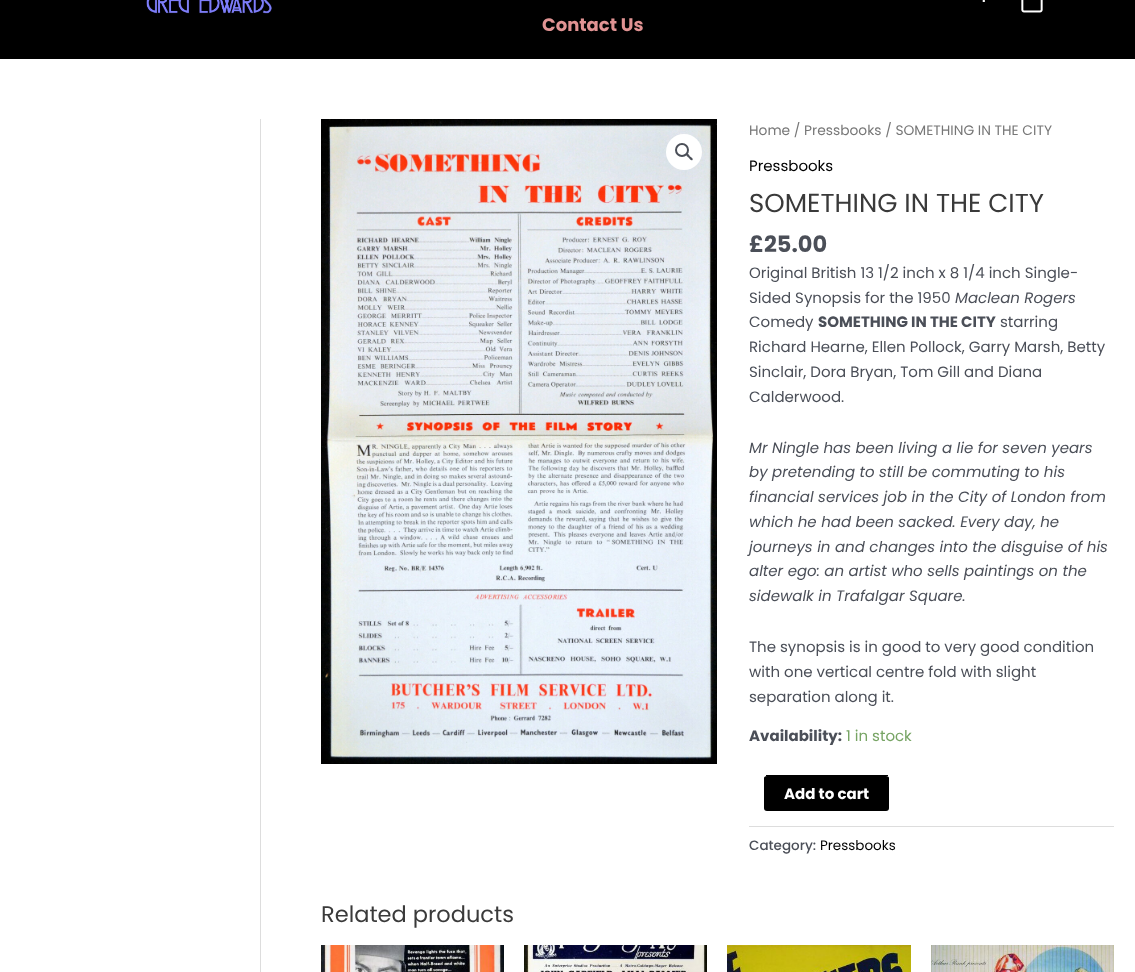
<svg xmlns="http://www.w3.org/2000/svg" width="1135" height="972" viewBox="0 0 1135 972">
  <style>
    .t1 { font: 600 14px Poppins; letter-spacing: 1px; fill: #fff; }
    .t2 { font: bold 18px Poppins; fill: #e19393; }
    .t3 { font: 13.8px Poppins; fill: #777; }
    .t4 { font: 15px Poppins; fill: #000; }
    .t5 { font: 26px Poppins; fill: #3a3a3a; }
    .t6 { font: bold 22.5px Poppins; fill: #4b4f58; }
    .t7 { font: 15px Poppins; fill: #4b4f58; }
    .t8 { font: italic 15px Poppins; fill: #4b4f58; }
    .t9 { font: bold 15px Poppins; fill: #4b4f58; }
    .t10 { font: 15px Poppins; fill: #77a464; }
    .t11 { font: bold 15px Poppins; fill: #fff; }
    .t12 { font: 500 13.5px Poppins; fill: #4b4f58; }
    .t13 { font: 13.5px Poppins; fill: #000; }
    .t14 { font: 22.5px Poppins; fill: #3a3a3a; }
  </style>
  <rect width="100%" height="100%" fill="#fff"/>
  <rect x="0" y="0" width="1135" height="59" fill="#000"/>
  <image x="146" y="0" width="126" height="14" href="images/1.png"/>
  <text x="982" y="2" class="t1">.</text>
  <image x="1021" y="0" width="22" height="13" href="images/2.png"/>
  <text x="542" y="31" class="t2">Contact Us</text>
  <rect x="260" y="119" width="1" height="853" fill="#ddd"/>
  <image x="321" y="119" width="396" height="645" href="images/3.png"/>
  <circle cx="684" cy="152" r="18" fill="#fff"/>
  <circle cx="682" cy="150" r="6" fill="none" stroke="#4b4f58" stroke-width="2"/>
  <path d="M686.5 154C688 153 689.5 155.5 690 156.5C691 157 693.5 158.5 692.5 160C691 161 689.5 158.5 688.5 157.5C688 157 685.5 155.5 686.5 154Z" fill="#4b4f58"/>
  <text x="749" y="135" class="t3">Home / Pressbooks / SOMETHING IN THE CITY</text>
  <text x="749" y="171" class="t4">Pressbooks</text>
  <text x="749" y="212" class="t5">SOMETHING IN THE CITY</text>
  <text x="749" y="252" class="t6">£25.00</text>
  <text x="749" y="278" class="t7">Original British 13 1/2 inch x 8 1/4 inch Single-</text>
  <text x="749" y="303" class="t7">Sided Synopsis for the 1950</text>
  <text x="955" y="303" class="t8">Maclean Rogers</text>
  <text x="749" y="327" class="t7">Comedy</text>
  <text x="818" y="327" class="t9">SOMETHING IN THE CITY</text>
  <text x="1000" y="327" class="t7">starring</text>
  <text x="749" y="352" class="t7">Richard Hearne, Ellen Pollock, Garry Marsh, Betty</text>
  <text x="749" y="377" class="t7">Sinclair, Dora Bryan, Tom Gill and Diana</text>
  <text x="749" y="402" class="t7">Calderwood.</text>
  <text x="749" y="453" class="t8">Mr Ningle has been living a lie for seven years</text>
  <text x="749" y="477" class="t8">by pretending to still be commuting to his</text>
  <text x="749" y="502" class="t8">financial services job in the City of London from</text>
  <text x="749" y="527" class="t8">which he had been sacked. Every day, he</text>
  <text x="749" y="552" class="t8">journeys in and changes into the disguise of his</text>
  <text x="749" y="576" class="t8">alter ego: an artist who sells paintings on the</text>
  <text x="749" y="601" class="t8">sidewalk in Trafalgar Square.</text>
  <text x="749" y="652" class="t7">The synopsis is in good to very good condition</text>
  <text x="749" y="677" class="t7">with one vertical centre fold with slight</text>
  <text x="749" y="702" class="t7">separation along it.</text>
  <text x="749" y="741" class="t9">Availability:</text>
  <text x="846" y="741" class="t10">1 in stock</text>
  <path d="M767 776H886C888 776 889 777 889 778V808C889 810 888 811 886 811H767C765 811 764 810 764 808V778C764 777 765 776 767 776Z" fill="#000"/>
  <rect x="766" y="775" width="122" height="1" fill="#000"/>
  <text x="784" y="799" class="t11">Add to cart</text>
  <rect x="749" y="826" width="365" height="1" fill="#ddd"/>
  <text x="749" y="850" class="t12">Category:</text>
  <text x="820" y="850" class="t13">Pressbooks</text>
  <text x="321" y="922" class="t14">Related products</text>
  <image x="321" y="945" width="183" height="27" href="images/4.png"/>
  <image x="524" y="945" width="183" height="27" href="images/5.png"/>
  <image x="727" y="945" width="184" height="27" href="images/6.png"/>
  <image x="931" y="945" width="183" height="27" href="images/7.png"/>
</svg>
